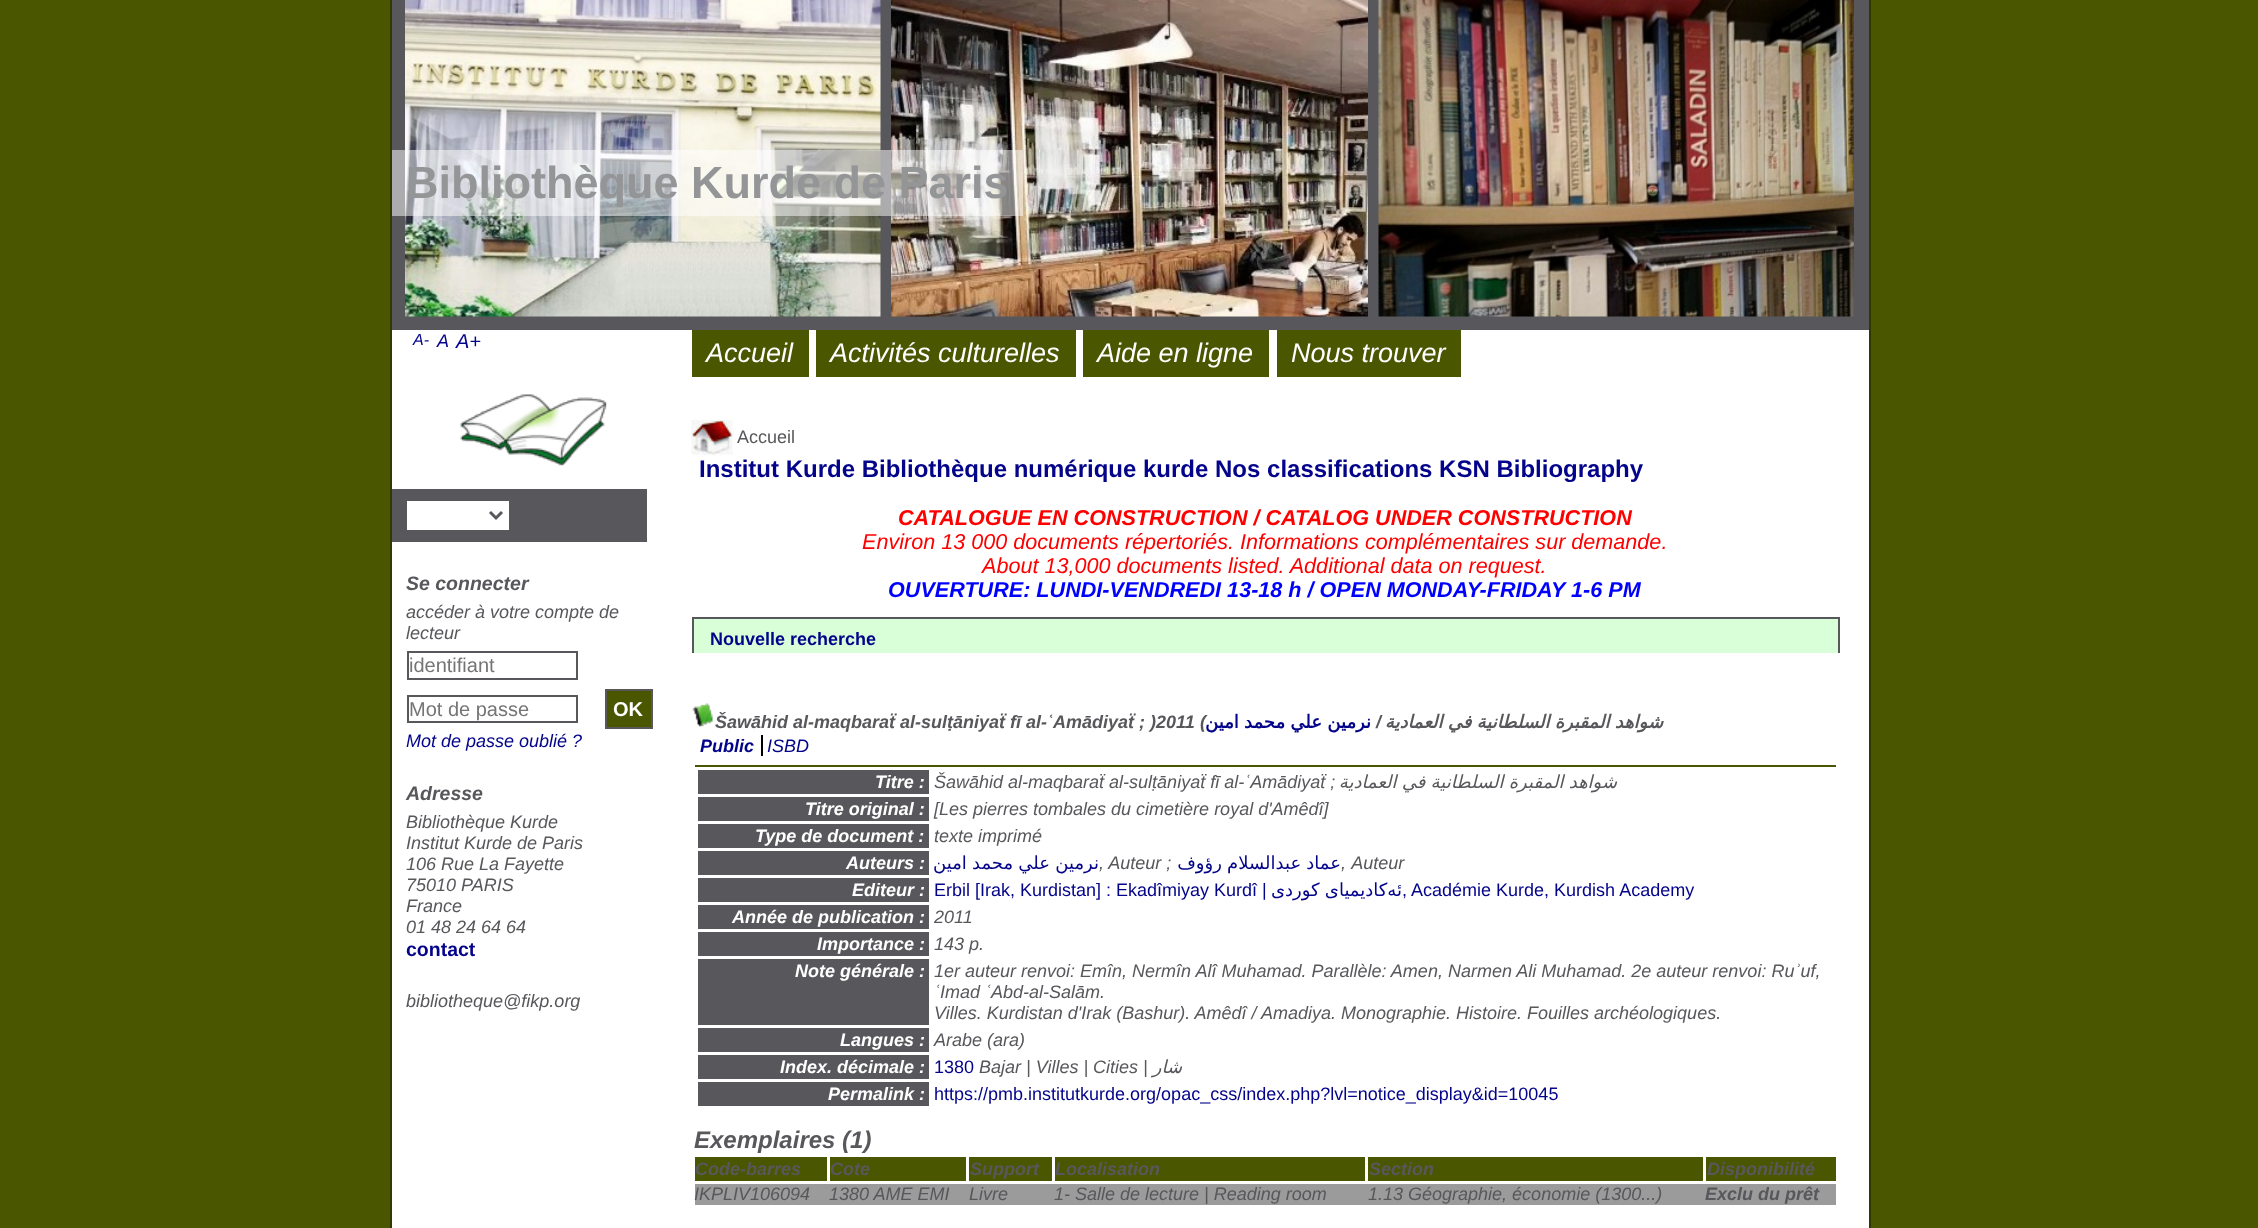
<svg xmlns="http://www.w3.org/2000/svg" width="2258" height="1228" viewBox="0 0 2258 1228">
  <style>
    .t1 { font: bold 45px Liberation Sans; fill: #949597; }
    .t2 { font: 18px Liberation Sans; fill: #58585c; }
    .t3 { font: bold 24px Liberation Sans; fill: #04048b; }
    .t4 { font: italic bold 21.6px Liberation Sans; fill: #f00; }
    .t5 { font: italic 21.6px Liberation Sans; fill: #f00; }
    .t6 { font: italic bold 21.6px Liberation Sans; fill: #00f; }
    .t7 { font: bold 18px Liberation Sans; fill: #04048b; }
    .t8 { font: italic bold 18px Liberation Sans; fill: #58585c; }
    .t9 { font: bold 18px DejaVu Sans; direction: rtl; fill: #04048b; }
    .t10 { font: italic bold 18px DejaVu Sans; direction: rtl; fill: #58585c; }
    .t11 { font: italic bold 18px Liberation Sans; fill: #04048b; }
    .t12 { font: italic 18px Liberation Sans; fill: #04048b; }
    .t13 { font: italic bold 18px Liberation Sans; fill: #fff; }
    .t14 { font: italic 18px Liberation Sans; fill: #58585c; }
    .t15 { font: italic 18px DejaVu Sans; direction: rtl; fill: #58585c; }
    .t16 { font: 18px DejaVu Sans; direction: rtl; fill: #04048b; }
    .t17 { font: 18px Liberation Sans; fill: #04048b; }
    .t18 { font: italic bold 24px Liberation Sans; fill: #58585c; }
    .t19 { font: italic 16px Liberation Sans; fill: #04048b; }
    .t20 { font: italic 20px Liberation Sans; fill: #04048b; }
    .t21 { font: italic bold 19.5px Liberation Sans; fill: #58585c; }
    .t22 { font: 20px Liberation Sans; fill: #757575; }
    .t23 { font: bold 20px Liberation Sans; fill: #fff; }
    .t24 { font: bold 19.5px Liberation Sans; fill: #04048b; }
    .t25 { font: italic 27px Liberation Sans; fill: #fff; }
  </style>
  <rect width="100%" height="100%" fill="#4a5600"/>
  <rect x="391" y="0" width="1479" height="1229" fill="none" stroke="#313900" stroke-width="2"/>
  <rect x="392" y="330" width="1477" height="898" fill="#fff"/>
  <rect x="392" y="0" width="1477" height="330" fill="#58585c"/>
  <image x="405" y="0" width="476" height="317" href="images/4.png"/>
  <image x="891" y="0" width="477" height="317" href="images/5.png"/>
  <rect x="392" y="150" width="631" height="66" fill="#ffffff80"/>
  <text x="406" y="198" class="t1">Bibliothèque Kurde de Paris</text>
  <image x="691" y="420" width="43" height="36" href="images/1.png"/>
  <text x="737" y="443" class="t2">Accueil</text>
  <text x="699" y="477" class="t3">Institut Kurde Bibliothèque numérique kurde Nos classifications KSN Bibliography</text>
  <text x="898" y="525" class="t4">CATALOGUE EN CONSTRUCTION / CATALOG UNDER CONSTRUCTION</text>
  <text x="862" y="549" class="t5">Environ 13 000 documents répertoriés. Informations complémentaires sur demande.</text>
  <text x="982" y="573" class="t5">About 13,000 documents listed. Additional data on request.</text>
  <text x="888" y="597" class="t6">OUVERTURE: LUNDI-VENDREDI 13-18 h / OPEN MONDAY-FRIDAY 1-6 PM</text>
  <rect x="694" y="619" width="1144" height="34" fill="#d8ffd8"/>
  <rect x="692" y="617" width="1147" height="2" fill="#58585c"/>
  <rect x="1838" y="617" width="2" height="36" fill="#58585c"/>
  <rect x="692" y="617" width="2" height="36" fill="#58585c"/>
  <text x="710" y="645" class="t7">Nouvelle recherche</text>
  <image x="692" y="703" width="21" height="24" href="images/2.png"/>
  <text x="715" y="728" class="t8">Šawāhid al-maqbaraẗ al-sulṭāniyaẗ fī al-ʿAmādiyaẗ ; )2011</text>
  <text x="1371" y="728" word-spacing="-0.5" class="t9">نرمين علي محمد امين</text>
  <text x="1200" y="728" class="t8">(</text>
  <text x="1376" y="728" class="t8">/</text>
  <text x="1663" y="728" word-spacing="-0.5" class="t10">شواهد المقبرة السلطانية في العمادية</text>
  <rect x="695" y="765" width="1141" height="2" fill="#4a5600"/>
  <rect x="761" y="735" width="2" height="21" fill="#000"/>
  <text x="700" y="752" class="t11">Public</text>
  <text x="767" y="752" class="t12">ISBD</text>
  <rect x="698" y="770" width="231" height="24" fill="#58585c"/>
  <text x="875" y="788" class="t13">Titre :</text>
  <text x="934" y="788" class="t14">Šawāhid al-maqbaraẗ al-sulṭāniyaẗ fī al-ʿAmādiyaẗ ;</text>
  <text x="1617" y="788" word-spacing="-0.5" class="t15">شواهد المقبرة السلطانية في العمادية</text>
  <rect x="698" y="797" width="231" height="24" fill="#58585c"/>
  <text x="805" y="815" class="t13">Titre original :</text>
  <text x="934" y="815" class="t14">[Les pierres tombales du cimetière royal d'Amêdî]</text>
  <rect x="698" y="824" width="231" height="24" fill="#58585c"/>
  <text x="755" y="842" class="t13">Type de document :</text>
  <text x="934" y="842" class="t14">texte imprimé</text>
  <rect x="698" y="851" width="231" height="24" fill="#58585c"/>
  <text x="846" y="869" class="t13">Auteurs :</text>
  <text x="1099" y="869" word-spacing="-0.5" class="t16">نرمين علي محمد امين</text>
  <text x="1099" y="869" class="t14">, Auteur ;</text>
  <text x="1341" y="869" word-spacing="-0.5" class="t16">عماد عبدالسلام رؤوف</text>
  <text x="1341" y="869" word-spacing="1" class="t14">, Auteur</text>
  <rect x="698" y="878" width="231" height="24" fill="#58585c"/>
  <text x="852" y="896" class="t13">Editeur :</text>
  <text x="934" y="896" class="t17">Erbil [Irak, Kurdistan] : Ekadîmiyay Kurdî |</text>
  <text x="1402" y="896" word-spacing="-0.5" class="t16">ئەكادیمیای كوردی</text>
  <text x="1402" y="896" class="t17">, Académie Kurde, Kurdish Academy</text>
  <rect x="698" y="905" width="231" height="24" fill="#58585c"/>
  <text x="732" y="923" class="t13">Année de publication :</text>
  <text x="934" y="923" class="t14">2011</text>
  <rect x="698" y="932" width="231" height="24" fill="#58585c"/>
  <text x="817" y="950" class="t13">Importance :</text>
  <text x="934" y="950" class="t14">143 p.</text>
  <rect x="698" y="959" width="231" height="66" fill="#58585c"/>
  <text x="795" y="977" class="t13">Note générale :</text>
  <text x="934" y="977" class="t14">1er auteur renvoi: Emîn, Nermîn Alî Muhamad. Parallèle: Amen, Narmen Ali Muhamad. 2e auteur renvoi: Ruʾuf,</text>
  <text x="934" y="998" class="t14">ʿImad ʿAbd-al-Salām.</text>
  <text x="934" y="1019" class="t14">Villes. Kurdistan d'Irak (Bashur). Amêdî / Amadiya. Monographie. Histoire. Fouilles archéologiques.</text>
  <rect x="698" y="1028" width="231" height="24" fill="#58585c"/>
  <text x="840" y="1046" class="t13">Langues :</text>
  <text x="934" y="1046" class="t14">Arabe (ara)</text>
  <rect x="698" y="1055" width="231" height="24" fill="#58585c"/>
  <text x="780" y="1073" class="t13">Index. décimale :</text>
  <text x="934" y="1073" class="t17">1380</text>
  <text x="979" y="1073" class="t14">Bajar | Villes | Cities |</text>
  <text x="1182" y="1073" class="t15">شار</text>
  <rect x="698" y="1082" width="231" height="24" fill="#58585c"/>
  <text x="828" y="1100" class="t13">Permalink :</text>
  <text x="934" y="1100" class="t17">https://pmb.institutkurde.org/opac_css/index.php?lvl=notice_display&amp;id=10045</text>
  <text x="694" y="1148" class="t18">Exemplaires (1)</text>
  <rect x="695" y="1157" width="132" height="24" fill="#4a5600"/>
  <text x="695" y="1175" class="t8">Code-barres</text>
  <rect x="830" y="1157" width="136" height="24" fill="#4a5600"/>
  <text x="830" y="1175" class="t8">Cote</text>
  <rect x="969" y="1157" width="83" height="24" fill="#4a5600"/>
  <text x="970" y="1175" class="t8">Support</text>
  <rect x="1055" y="1157" width="310" height="24" fill="#4a5600"/>
  <text x="1055" y="1175" class="t8">Localisation</text>
  <rect x="1368" y="1157" width="335" height="24" fill="#4a5600"/>
  <text x="1369" y="1175" class="t8">Section</text>
  <rect x="1706" y="1157" width="130" height="24" fill="#4a5600"/>
  <text x="1707" y="1175" class="t8">Disponibilité</text>
  <rect x="695" y="1184" width="1141" height="21" fill="#9b9b9b"/>
  <text x="694" y="1200" class="t14">IKPLIV106094</text>
  <text x="829" y="1200" class="t14">1380 AME EMI</text>
  <text x="969" y="1200" class="t14">Livre</text>
  <text x="1054" y="1200" class="t14">1- Salle de lecture | Reading room</text>
  <text x="1368" y="1200" class="t14">1.13 Géographie, économie (1300...)</text>
  <text x="1705" y="1200" class="t8">Exclu du prêt</text>
  <text x="413" y="345" class="t19">A-</text>
  <text x="437" y="347" class="t12">A</text>
  <text x="456" y="348" class="t20">A+</text>
  <image x="460" y="394" width="147" height="72" href="images/3.png"/>
  <rect x="392" y="489" width="255" height="53" fill="#58585c"/>
  <rect x="407" y="501" width="102" height="29" fill="#fff"/>
  <path d="M490 512L496 518L502 512" fill="none" stroke="#58585c" stroke-width="3"/>
  <text x="406" y="590" class="t21">Se connecter</text>
  <text x="406" y="618" class="t14">accéder à votre compte de</text>
  <text x="406" y="639" class="t14">lecteur</text>
  <rect x="408" y="652" width="169" height="27" fill="none" stroke="#58585c" stroke-width="2"/>
  <text x="409" y="672" class="t22">identifiant</text>
  <rect x="408" y="696" width="169" height="26" fill="none" stroke="#58585c" stroke-width="2"/>
  <text x="409" y="716" class="t22">Mot de passe</text>
  <rect x="606" y="690" width="46" height="38" fill="#4a5600" stroke="#58585c" stroke-width="2"/>
  <text x="613" y="716" class="t23">OK</text>
  <text x="406" y="747" class="t12">Mot de passe oublié ?</text>
  <text x="406" y="800" class="t21">Adresse</text>
  <text x="406" y="828" class="t14">Bibliothèque Kurde</text>
  <text x="406" y="849" class="t14">Institut Kurde de Paris</text>
  <text x="406" y="870" class="t14">106 Rue La Fayette</text>
  <text x="406" y="891" class="t14">75010 PARIS</text>
  <text x="406" y="912" class="t14">France</text>
  <text x="406" y="933" class="t14">01 48 24 64 64</text>
  <text x="406" y="956" class="t24">contact</text>
  <text x="406" y="1007" class="t14">bibliotheque@fikp.org</text>
  <image x="1378" y="0" width="476" height="317" href="images/6.png"/>
  <rect x="692" y="330" width="117" height="47" fill="#4a5600"/>
  <text x="706" y="362" class="t25">Accueil</text>
  <rect x="816" y="330" width="260" height="47" fill="#4a5600"/>
  <text x="830" y="362" class="t25">Activités culturelles</text>
  <rect x="1083" y="330" width="186" height="47" fill="#4a5600"/>
  <text x="1097" y="362" class="t25">Aide en ligne</text>
  <rect x="1277" y="330" width="184" height="47" fill="#4a5600"/>
  <text x="1291" y="362" class="t25">Nous trouver</text>
</svg>
